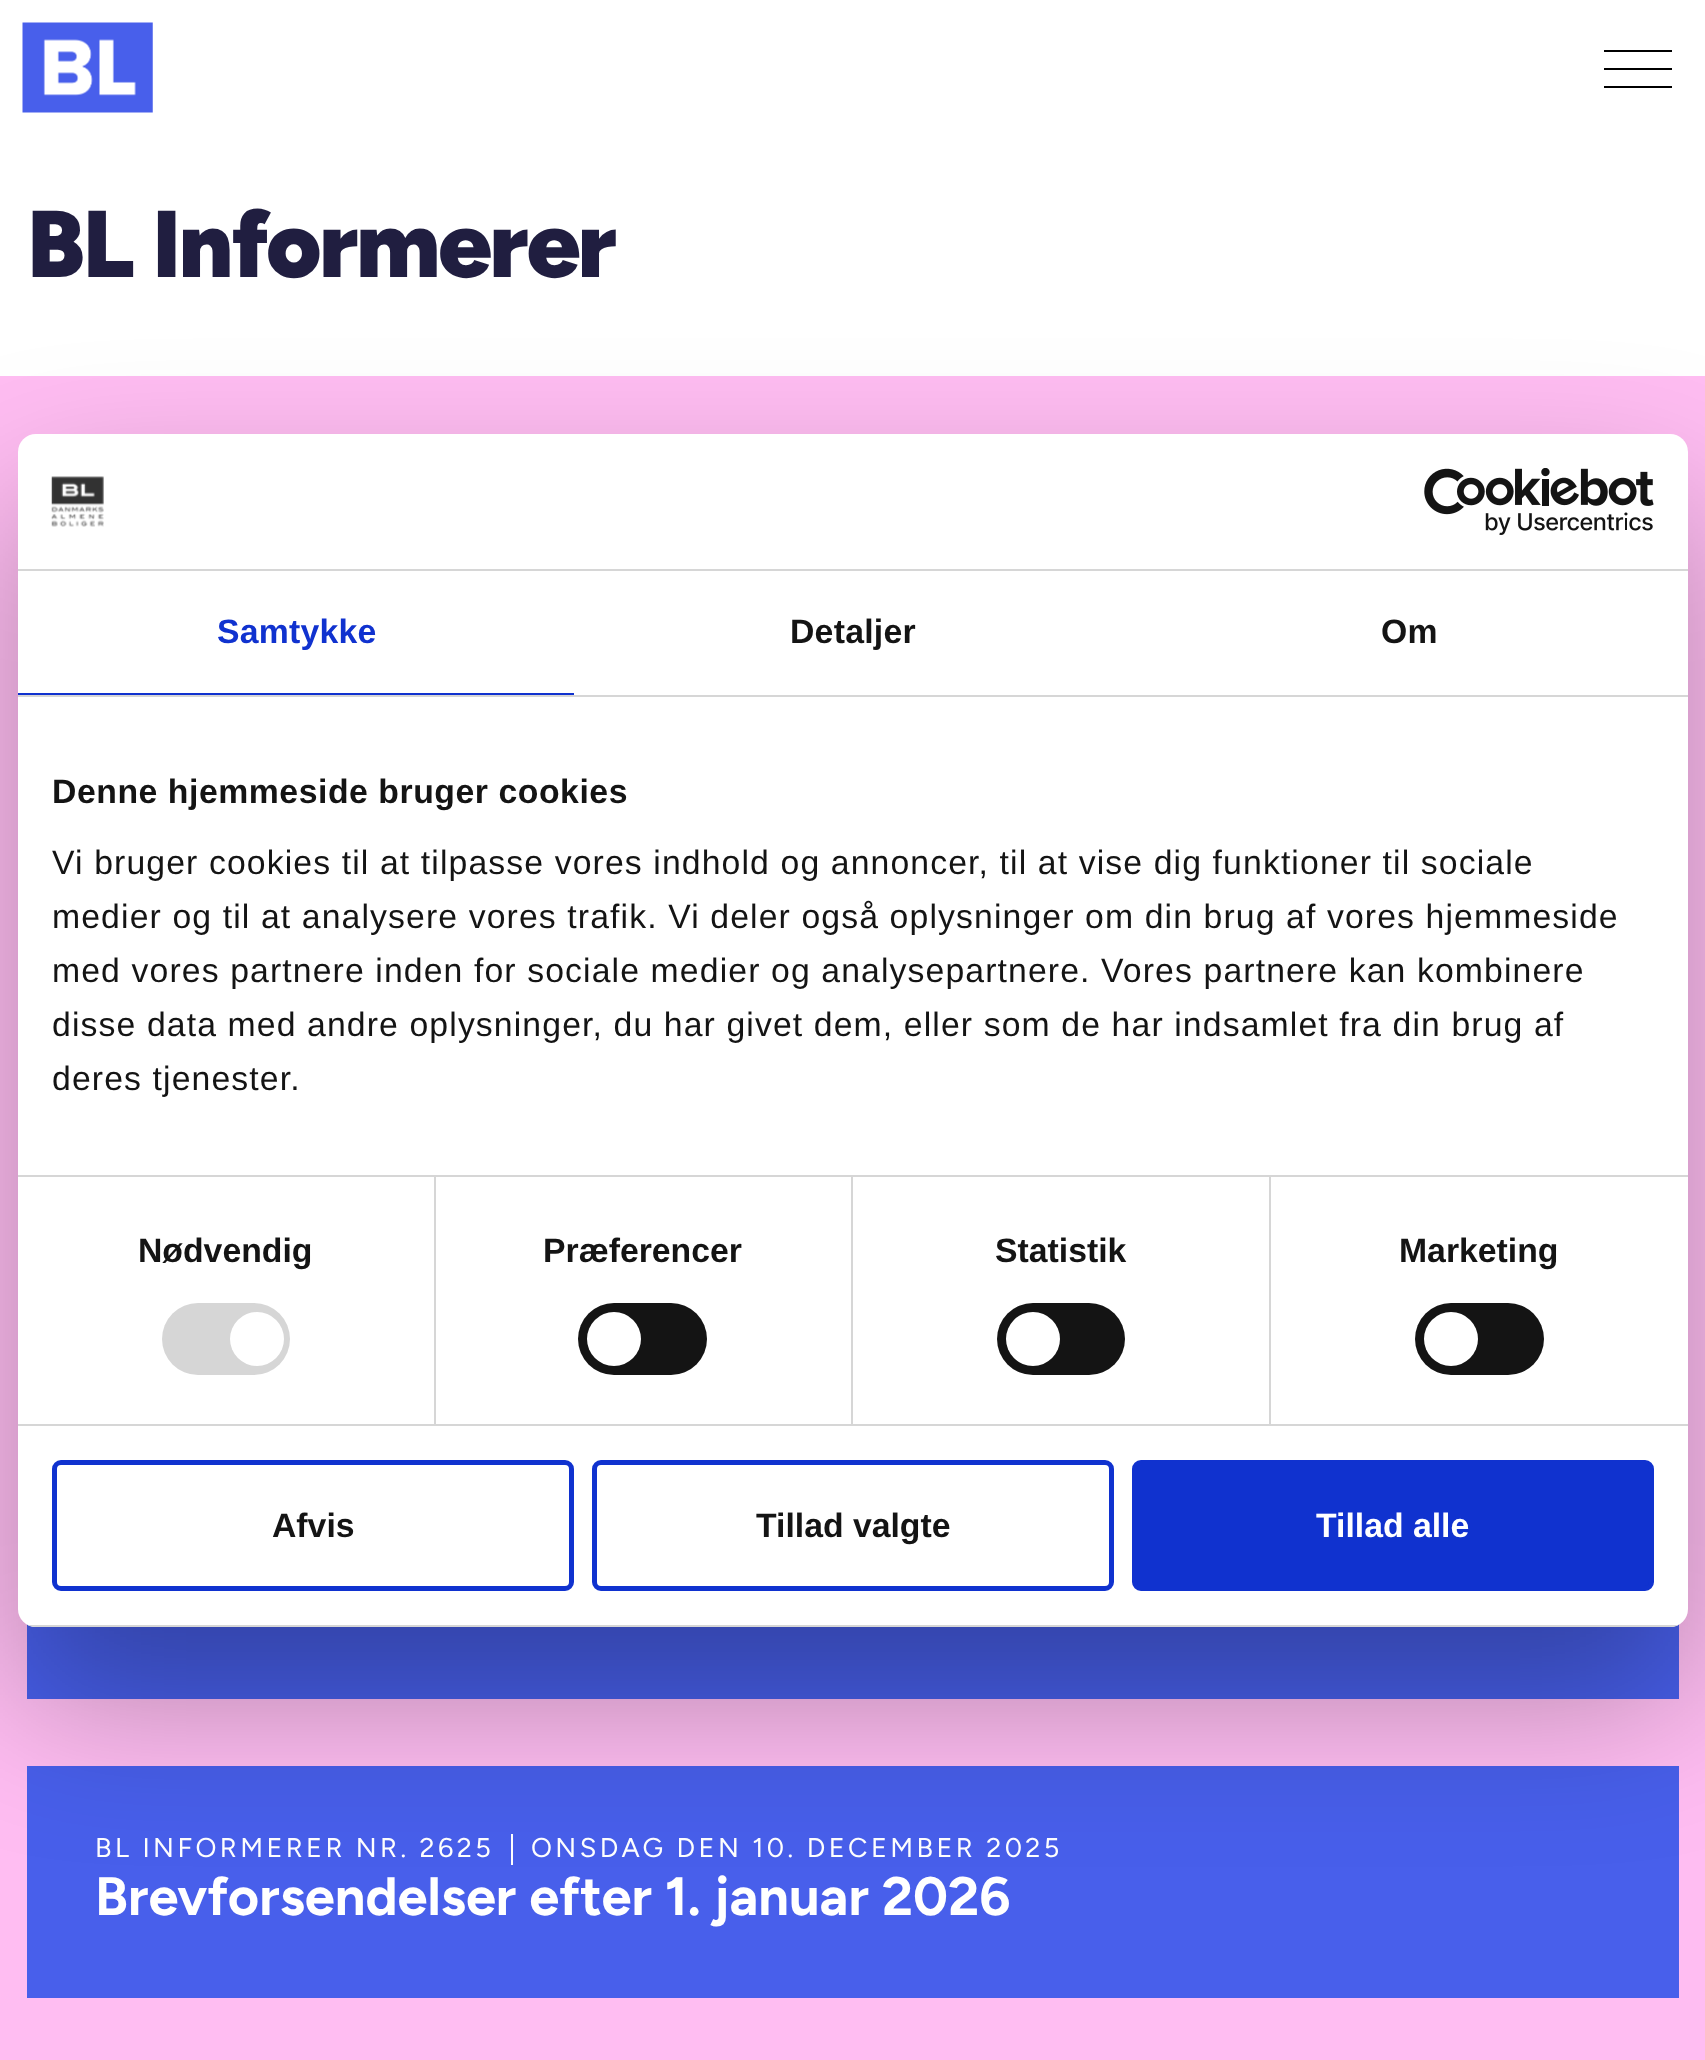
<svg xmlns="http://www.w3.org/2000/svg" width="1705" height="2060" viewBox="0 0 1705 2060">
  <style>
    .t1 { font: 900 94.5px Figtree; letter-spacing: -2.25px; fill: #201e40; }
    .t2 { font: 27px Figtree; letter-spacing: 3.4px; fill: #fff; }
    .t3 { font: bold 54px Figtree; fill: #fff; }
    .t4 { font: bold 33.75px Liberation Sans; letter-spacing: 0.25px; fill: #1032cf; }
    .t5 { font: bold 33.75px Liberation Sans; letter-spacing: 0.25px; fill: #141414; }
    .t6 { font: bold 33.75px Liberation Sans; letter-spacing: 0.55px; fill: #141414; }
    .t7 { font: 33.75px Liberation Sans; letter-spacing: 1.12px; fill: #141414; }
    .t8 { font: bold 33.75px Liberation Sans; fill: #141414; }
    .t9 { font: bold 33.75px Liberation Sans; fill: #fff; }
  </style>
  <defs>
    <clipPath id="clip1"><rect x="18" y="434" width="1670" height="1193" rx="18"/></clipPath>
  </defs>
  <rect width="100%" height="100%" fill="#fff"/>
  <image x="22" y="22" width="131" height="91" href="images/1.png"/>
  <rect x="1604" y="68" width="68" height="2" fill="#000"/>
  <rect x="1604" y="50" width="68" height="2" fill="#000"/>
  <rect x="1604" y="86" width="68" height="2" fill="#000"/>
  <text x="27" y="277" class="t1">BL Informerer</text>
  <rect x="0" y="376" width="1705" height="1684" fill="#ffbdf2"/>
  <rect x="27" y="1624" width="1652" height="75" fill="#485feb"/>
  <rect x="27" y="1766" width="1652" height="232" fill="#485feb"/>
  <text x="95" y="1857" class="t2">BL INFORMERER NR. 2625</text>
  <rect x="511" y="1834" width="2" height="31" fill="#fff"/>
  <text x="531" y="1857" class="t2">ONSDAG DEN 10. DECEMBER 2025</text>
  <text x="95" y="1915" class="t3">Brevforsendelser efter 1. januar 2026</text>
  <rect x="18" y="506" width="1670" height="1193" rx="18" fill="#0000004d" filter="blur(76.5px)"/>
  <rect x="18" y="434" width="1670" height="1193" rx="18" fill="#fff"/>
  <rect x="18" y="569" width="1670" height="2" fill="#d6d6d6"/>
  <image x="51" y="476" width="53" height="51" href="images/2.png"/>
  <image x="1424" y="468" width="230" height="67" href="images/3.png"/>
  <rect x="18" y="695" width="1670" height="2" fill="#d6d6d6"/>
  <rect x="18" y="693" width="556" height="2" fill="#1032cf"/>
  <text x="217" y="643" class="t4">Samtykke</text>
  <text x="790" y="643" class="t5">Detaljer</text>
  <text x="1381" y="643" class="t5">Om</text>
  <rect x="18" y="1175" width="1670" height="2" fill="#d6d6d6"/>
  <text x="52" y="803" class="t6">Denne hjemmeside bruger cookies</text>
  <text x="52" y="874" class="t7">Vi bruger cookies til at tilpasse vores indhold og annoncer, til at vise dig funktioner til sociale</text>
  <text x="52" y="928" class="t7">medier og til at analysere vores trafik. Vi deler også oplysninger om din brug af vores hjemmeside</text>
  <text x="52" y="982" class="t7">med vores partnere inden for sociale medier og analysepartnere. Vores partnere kan kombinere</text>
  <text x="52" y="1036" class="t7">disse data med andre oplysninger, du har givet dem, eller som de har indsamlet fra din brug af</text>
  <text x="52" y="1090" class="t7">deres tjenester.</text>
  <rect x="18" y="1424" width="1670" height="2" fill="#d6d6d6"/>
  <rect x="434" y="1177" width="2" height="247" fill="#d6d6d6"/>
  <text x="138" y="1262" class="t8">Nødvendig</text>
  <rect x="162" y="1303" width="128" height="72" rx="36" fill="#d6d6d6"/>
  <circle cx="257" cy="1339" r="27" fill="#fff"/>
  <rect x="851" y="1177" width="2" height="247" fill="#d6d6d6"/>
  <text x="543" y="1262" class="t8">Præferencer</text>
  <rect x="578" y="1303" width="129" height="72" rx="36" fill="#141414"/>
  <circle cx="614" cy="1339" r="27" fill="#fff"/>
  <rect x="1269" y="1177" width="2" height="247" fill="#d6d6d6"/>
  <text x="995" y="1262" class="t8">Statistik</text>
  <rect x="997" y="1303" width="128" height="72" rx="36" fill="#141414"/>
  <circle cx="1033" cy="1339" r="27" fill="#fff"/>
  <text x="1399" y="1262" class="t8">Marketing</text>
  <rect x="1415" y="1303" width="129" height="72" rx="36" fill="#141414"/>
  <circle cx="1451" cy="1339" r="27" fill="#fff"/>
  <g clip-path="url(#clip1)">
    <rect x="28" y="1625" width="1650" height="2" fill="#d6d6d6"/>
  </g>
  <rect x="54.5" y="1462.5" width="517" height="126" rx="6.5" fill="none" stroke="#1032cf" stroke-width="5"/>
  <text x="272" y="1537" class="t8">Afvis</text>
  <rect x="594.5" y="1462.5" width="517" height="126" rx="6.5" fill="none" stroke="#1032cf" stroke-width="5"/>
  <text x="756" y="1537" class="t8">Tillad valgte</text>
  <rect x="1134.5" y="1462.5" width="517" height="126" rx="6.5" fill="#1032cf" stroke="#1032cf" stroke-width="5"/>
  <text x="1316" y="1537" class="t9">Tillad alle</text>
</svg>
